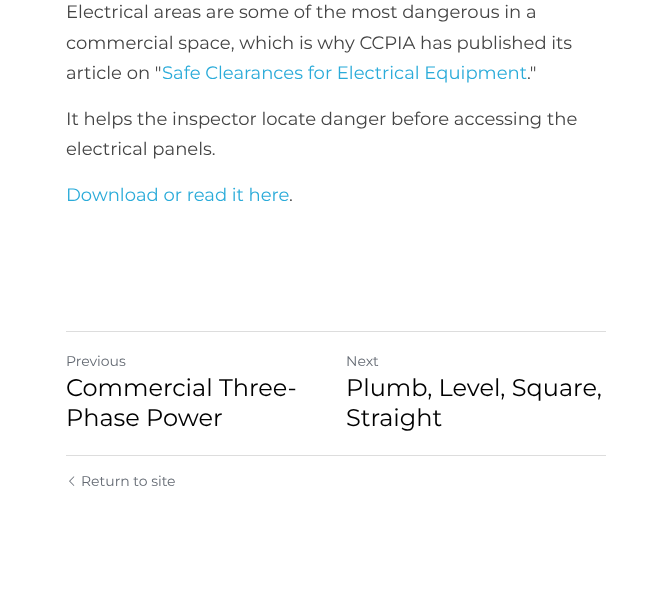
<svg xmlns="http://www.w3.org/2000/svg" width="672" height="593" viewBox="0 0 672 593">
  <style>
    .t1 { font: 18px Montserrat; fill: #444; }
    .t2 { font: 18px Montserrat; fill: #2aabd9; }
    .t3 { font: 14px Montserrat; fill: #636972; }
    .t4 { font: 24px Montserrat; fill: #000; }
  </style>
  <rect width="100%" height="100%" fill="#fff"/>
  <text x="66" y="18" class="t1">Electrical areas are some of the most dangerous in a</text>
  <text x="66" y="49" class="t1">commercial space, which is why CCPIA has published its</text>
  <text x="66" y="79" class="t1">article on "</text>
  <text x="162" y="79" class="t2">Safe Clearances for Electrical Equipment</text>
  <text x="527" y="79" class="t1">."</text>
  <text x="66" y="125" class="t1">It helps the inspector locate danger before accessing the</text>
  <text x="66" y="155" class="t1">electrical panels.</text>
  <text x="66" y="201" class="t2">Download or read it here</text>
  <text x="289" y="201" class="t1">.</text>
  <rect x="66" y="331" width="540" height="1" fill="#ddd"/>
  <text x="66" y="366" class="t3">Previous</text>
  <text x="66" y="396" class="t4">Commercial Three-</text>
  <text x="66" y="426" class="t4">Phase Power</text>
  <text x="346" y="366" class="t3">Next</text>
  <text x="346" y="396" class="t4">Plumb, Level, Square,</text>
  <text x="346" y="426" class="t4">Straight</text>
  <rect x="66" y="455" width="540" height="1" fill="#ddd"/>
  <image x="69" y="476" width="6" height="10" href="images/1.png"/>
  <text x="81" y="486" class="t3">Return to site</text>
</svg>
